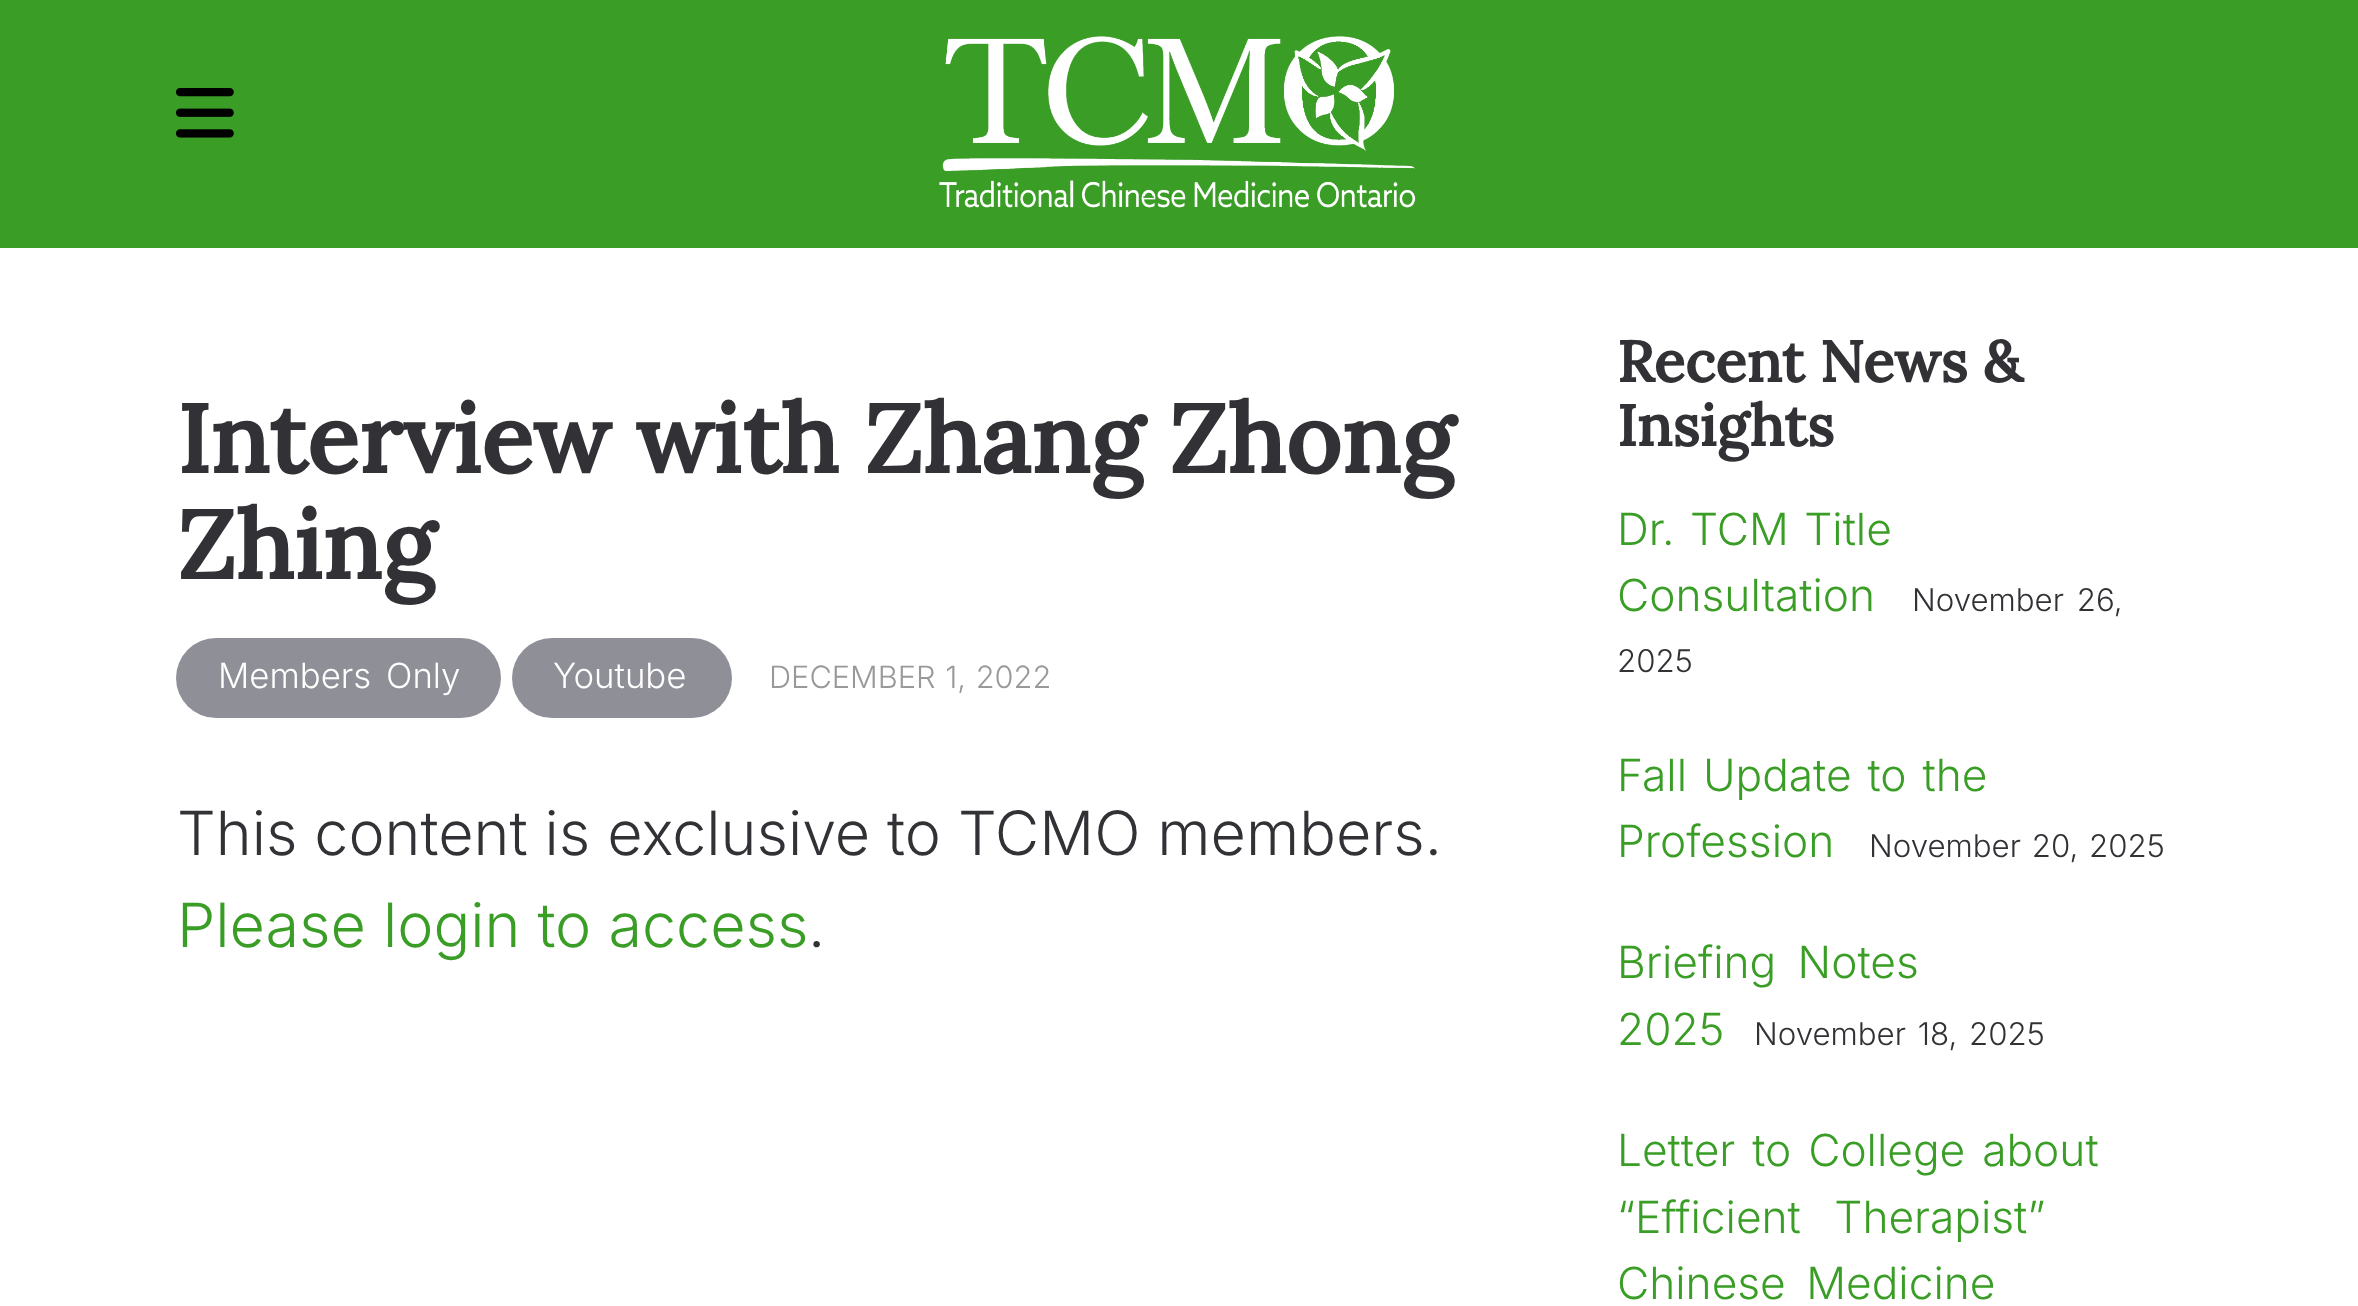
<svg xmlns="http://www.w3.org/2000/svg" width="2358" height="1306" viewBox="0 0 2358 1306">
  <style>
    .t1 { font: bold 96.25px Lora; fill: #323236; }
    .t2 { font: 300 34.75px Inter; fill: #fff; }
    .t3 { font: 300 30.75px Inter; fill: #999; }
    .t4 { font: 300 61px Inter; fill: #323236; }
    .t5 { font: 300 61px Inter; fill: #3a9d26; }
    .t6 { font: bold 57.75px Lora; fill: #323236; }
    .t7 { font: 300 44.25px Inter; fill: #3a9d26; }
    .t8 { font: 300 31.25px Inter; fill: #323236; }
  </style>
  <rect width="100%" height="100%" fill="#fff"/>
  <rect x="0" y="0" width="2358" height="248" fill="#3a9d26"/>
  <image x="176" y="88" width="58" height="50" href="images/1.png"/>
  <image x="939" y="36" width="477" height="172" href="images/2.png"/>
  <text x="177" y="473" class="t1">Interview with Zhang Zhong</text>
  <text x="177" y="579" class="t1">Zhing</text>
  <rect x="176" y="638" width="325" height="80" rx="40" fill="#8f8f97"/>
  <text x="218" y="688" word-spacing="5" class="t2">Members Only</text>
  <rect x="512" y="638" width="220" height="80" rx="40" fill="#8f8f97"/>
  <text x="553" y="688" class="t2">Youtube</text>
  <text x="769" y="688" word-spacing="1" class="t3">DECEMBER 1, 2022</text>
  <text x="177" y="855" word-spacing="-0.25" class="t4">This content is exclusive to TCMO members.</text>
  <text x="177" y="947" class="t5">Please login to access</text>
  <text x="808" y="947" class="t4">.</text>
  <text x="1617" y="382" class="t6">Recent News &amp;</text>
  <text x="1617" y="446" class="t6">Insights</text>
  <text x="1617" y="545" word-spacing="3" class="t7">Dr. TCM Title</text>
  <text x="1617" y="611" class="t7">Consultation</text>
  <text x="1912" y="611" word-spacing="4" class="t8">November 26,</text>
  <text x="1617" y="672" class="t8">2025</text>
  <text x="1617" y="791" word-spacing="3.5" class="t7">Fall Update to the</text>
  <text x="1617" y="857" class="t7">Profession</text>
  <text x="1869" y="857" word-spacing="2" class="t8">November 20, 2025</text>
  <text x="1617" y="978" word-spacing="9" class="t7">Briefing Notes</text>
  <text x="1617" y="1045" class="t7">2025</text>
  <text x="1754" y="1045" word-spacing="3" class="t8">November 18, 2025</text>
  <text x="1617" y="1166" word-spacing="4.5" class="t7">Letter to College about</text>
  <text x="1617" y="1233" word-spacing="21" class="t7">“Efficient Therapist”</text>
  <text x="1617" y="1299" word-spacing="8" class="t7">Chinese Medicine</text>
</svg>
